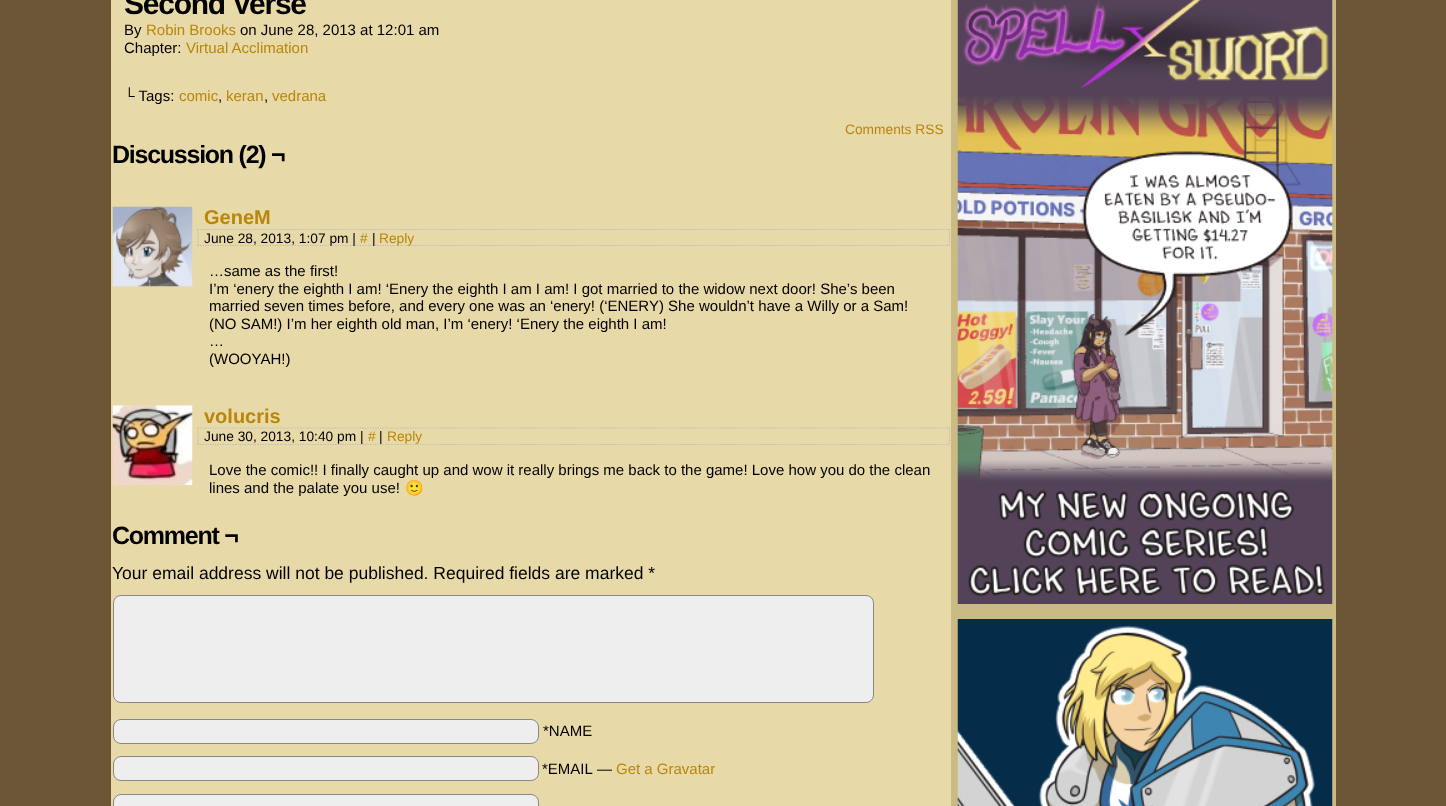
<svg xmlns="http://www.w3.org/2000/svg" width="1446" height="806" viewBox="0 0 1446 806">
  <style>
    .t1 { font: bold 30px Liberation Sans; letter-spacing: -1.25px; fill: #000; }
    .t2 { font: 15px Liberation Sans; fill: #000; }
    .t3 { font: 15px Liberation Sans; fill: #b8860b; }
    .t4 { font: 13.75px Liberation Sans; fill: #b8860b; }
    .t5 { font: bold 25px Liberation Sans; letter-spacing: -1.25px; fill: #000; }
    .t6 { font: bold 20px Liberation Sans; fill: #b8860b; }
    .t7 { font: 13.75px Liberation Sans; fill: #000; }
    .t8 { font: 15px Noto Color Emoji; fill: #000; }
    .t9 { font: 17.5px Liberation Sans; fill: #000; }
  </style>
  <rect width="100%" height="100%" fill="#6d5637"/>
  <rect x="951" y="0" width="385" height="806" fill="#caba83"/>
  <rect x="111" y="0" width="840" height="806" fill="#e8d9a9"/>
  <text x="124" y="14" class="t1">Second Verse</text>
  <text x="124" y="35" class="t2">By</text>
  <text x="146" y="35" class="t3">Robin Brooks</text>
  <text x="240" y="35" class="t2">on June 28, 2013 at 12:01 am</text>
  <text x="124" y="53" class="t2">Chapter:</text>
  <text x="186" y="53" class="t3">Virtual Acclimation</text>
  <text x="124" y="101" class="t2">└ Tags:</text>
  <text x="179" y="101" class="t3">comic</text>
  <text x="218" y="101" class="t2">,</text>
  <text x="226" y="101" class="t3">keran</text>
  <text x="264" y="101" class="t2">,</text>
  <text x="272" y="101" class="t3">vedrana</text>
  <text x="845" y="134" class="t4">Comments RSS</text>
  <text x="112" y="163" class="t5">Discussion (2) ¬</text>
  <image x="112" y="206" width="81" height="81" href="images/1.png"/>
  <text x="204" y="224" class="t6">GeneM</text>
  <path d="M197.5 229.5H950" fill="none" stroke="#bbb" stroke-width="1.2" stroke-dasharray="1.25 1.25"/>
  <path d="M949.5 229V246" fill="none" stroke="#bbb" stroke-width="1.2" stroke-dasharray="1.25 1.25"/>
  <path d="M197.5 245.5H950" fill="none" stroke="#bbb" stroke-width="1.2" stroke-dasharray="1.25 1.25"/>
  <path d="M198 229V246" fill="none" stroke="#bbb" stroke-width="1.2" stroke-dasharray="1.25 1.25"/>
  <text x="204" y="243" class="t7">June 28, 2013, 1:07 pm |</text>
  <text x="360" y="243" class="t4">#</text>
  <text x="372" y="243" class="t7">|</text>
  <text x="379" y="243" class="t4">Reply</text>
  <text x="209" y="276" class="t2">…same as the first!</text>
  <text x="209" y="294" class="t2">I’m ‘enery the eighth I am! ‘Enery the eighth I am I am! I got married to the widow next door! She’s been</text>
  <text x="209" y="311" class="t2">married seven times before, and every one was an ‘enery! (‘ENERY) She wouldn’t have a Willy or a Sam!</text>
  <text x="209" y="329" class="t2">(NO SAM!) I’m her eighth old man, I’m ‘enery! ‘Enery the eighth I am!</text>
  <text x="209" y="346" class="t2">…</text>
  <text x="209" y="364" class="t2">(WOOYAH!)</text>
  <image x="112" y="405" width="81" height="81" href="images/2.png"/>
  <text x="204" y="423" class="t6">volucris</text>
  <path d="M197.5 428H950" fill="none" stroke="#bbb" stroke-width="1.2" stroke-dasharray="1.25 1.25"/>
  <path d="M949.5 427.5V445" fill="none" stroke="#bbb" stroke-width="1.2" stroke-dasharray="1.25 1.25"/>
  <path d="M197.5 444.5H950" fill="none" stroke="#bbb" stroke-width="1.2" stroke-dasharray="1.25 1.25"/>
  <path d="M198 427.5V445" fill="none" stroke="#bbb" stroke-width="1.2" stroke-dasharray="1.25 1.25"/>
  <text x="204" y="441" class="t7">June 30, 2013, 10:40 pm |</text>
  <text x="368" y="441" class="t4">#</text>
  <text x="379" y="441" class="t7">|</text>
  <text x="387" y="441" class="t4">Reply</text>
  <text x="209" y="475" class="t2">Love the comic!! I finally caught up and wow it really brings me back to the game! Love how you do the clean</text>
  <text x="209" y="493" class="t2">lines and the palate you use!</text>
  <text x="405" y="493" class="t8">🙂</text>
  <text x="112" y="544" class="t5">Comment ¬</text>
  <text x="112" y="579" class="t9">Your email address will not be published. Required fields are marked *</text>
  <rect x="113.5" y="595.5" width="760" height="107" rx="7.5" fill="#eee" stroke="#888"/>
  <rect x="113.5" y="719.5" width="425" height="24" rx="7.5" fill="#eee" stroke="#888"/>
  <text x="543" y="736" class="t2">*NAME</text>
  <rect x="113.5" y="756.5" width="425" height="24" rx="7.5" fill="#eee" stroke="#888"/>
  <text x="542" y="774" class="t2">*EMAIL</text>
  <text x="597" y="774" class="t2">—</text>
  <text x="616" y="774" class="t3">Get a Gravatar</text>
  <rect x="113.5" y="794.5" width="425" height="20" rx="7.5" fill="#eee" stroke="#888"/>
  <image x="957" y="0" width="376" height="604" href="images/3.png"/>
  <image x="957" y="619" width="376" height="187" href="images/4.png"/>
</svg>
